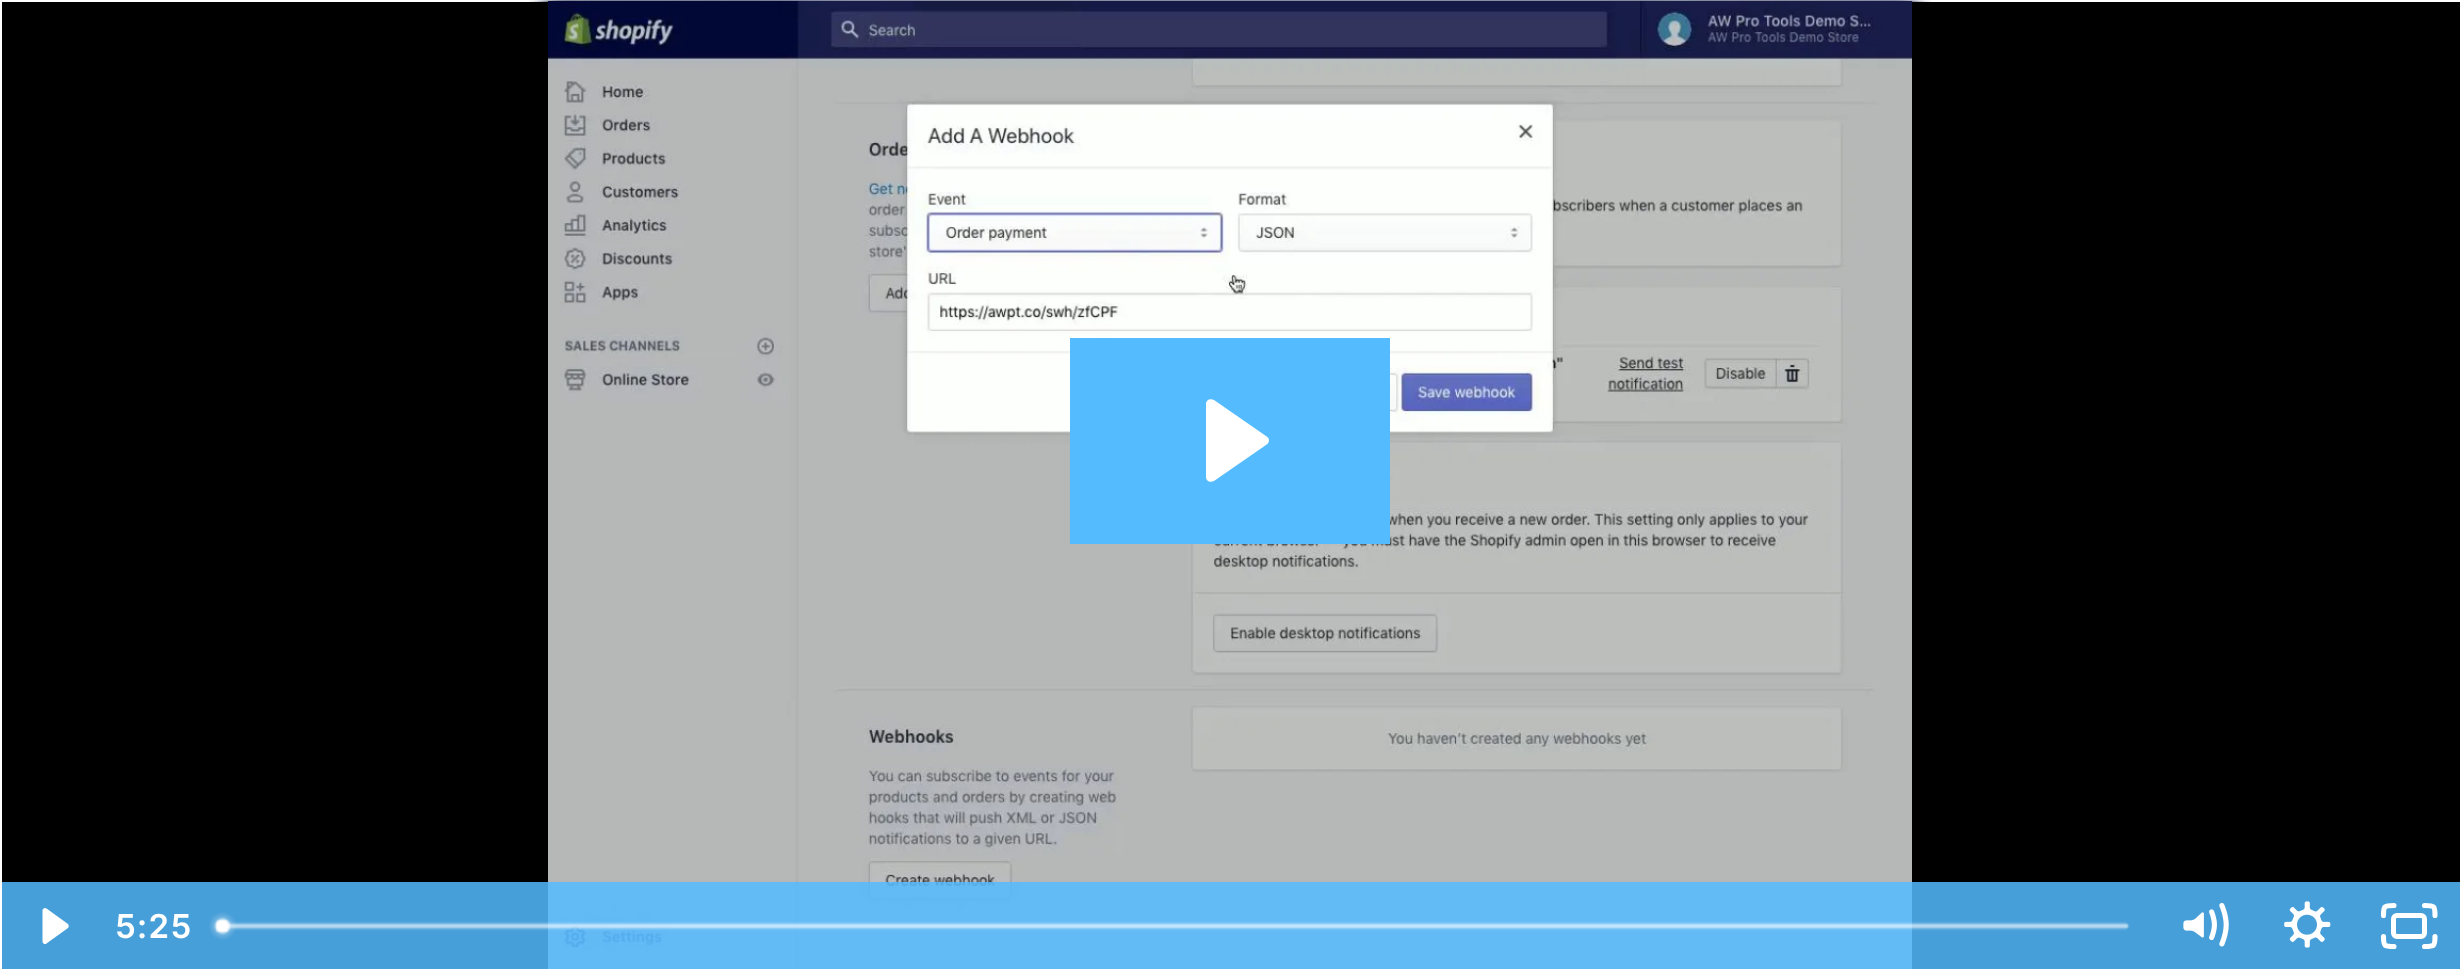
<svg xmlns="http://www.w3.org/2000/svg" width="2460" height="969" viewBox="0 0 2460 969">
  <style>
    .t1 { font: 600 33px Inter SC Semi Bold; letter-spacing: 1.5px; fill: #fff; }
  </style>
  <rect width="100%" height="100%" fill="#fff"/>
  <image x="529" y="0" width="1402" height="2" href="images/1.png"/>
  <rect x="2" y="2" width="2458" height="967" fill="#000"/>
  <image x="529" y="1" width="1402" height="1" href="images/3.png"/>
  <image x="548" y="1" width="1364" height="968" href="images/2.png"/>
  <rect x="1070" y="338" width="320" height="206" fill="#54bbff"/>
  <path d="M1214 400C1210 398 1206 400 1206 404V477C1206 481 1210 483 1214 481L1266 445C1268 444 1269 442 1269 440C1269 439 1268 437 1266 436Z" fill="#fff" fill-rule="evenodd"/>
  <rect x="2" y="882" width="2458" height="87" fill="#54bbffd9"/>
  <path d="M68 924C69 925 69 927 68 928L46.5 943.5C45 945 42.5 943.5 42.5 941.5V910.5C42.5 908.5 45 907 46.5 908.5Z" fill="#fff"/>
  <text x="115" y="938" class="t1">5:25</text>
  <image x="209" y="912" width="1921" height="28" href="images/4.png"/>
  <image x="2183" y="902" width="46" height="45" href="images/5.png"/>
  <image x="2284" y="901" width="47" height="47" href="images/6.png"/>
  <rect x="2393.5" y="915.5" width="31" height="21" rx="3.5" fill="none" stroke="#fff" stroke-width="5"/>
  <path d="M2383.5 915.5C2383.5 906 2384 905.5 2394 905.5M2435 915.5C2435 906 2434.5 905.5 2424.5 905.5M2435 936.5C2435 946 2434.5 946.5 2424.5 946.5M2383.5 936.5C2383.5 946 2384 946.5 2394 946.5" fill="none" stroke="#fff" stroke-width="5.1" stroke-linecap="round" stroke-linejoin="round"/>
</svg>
